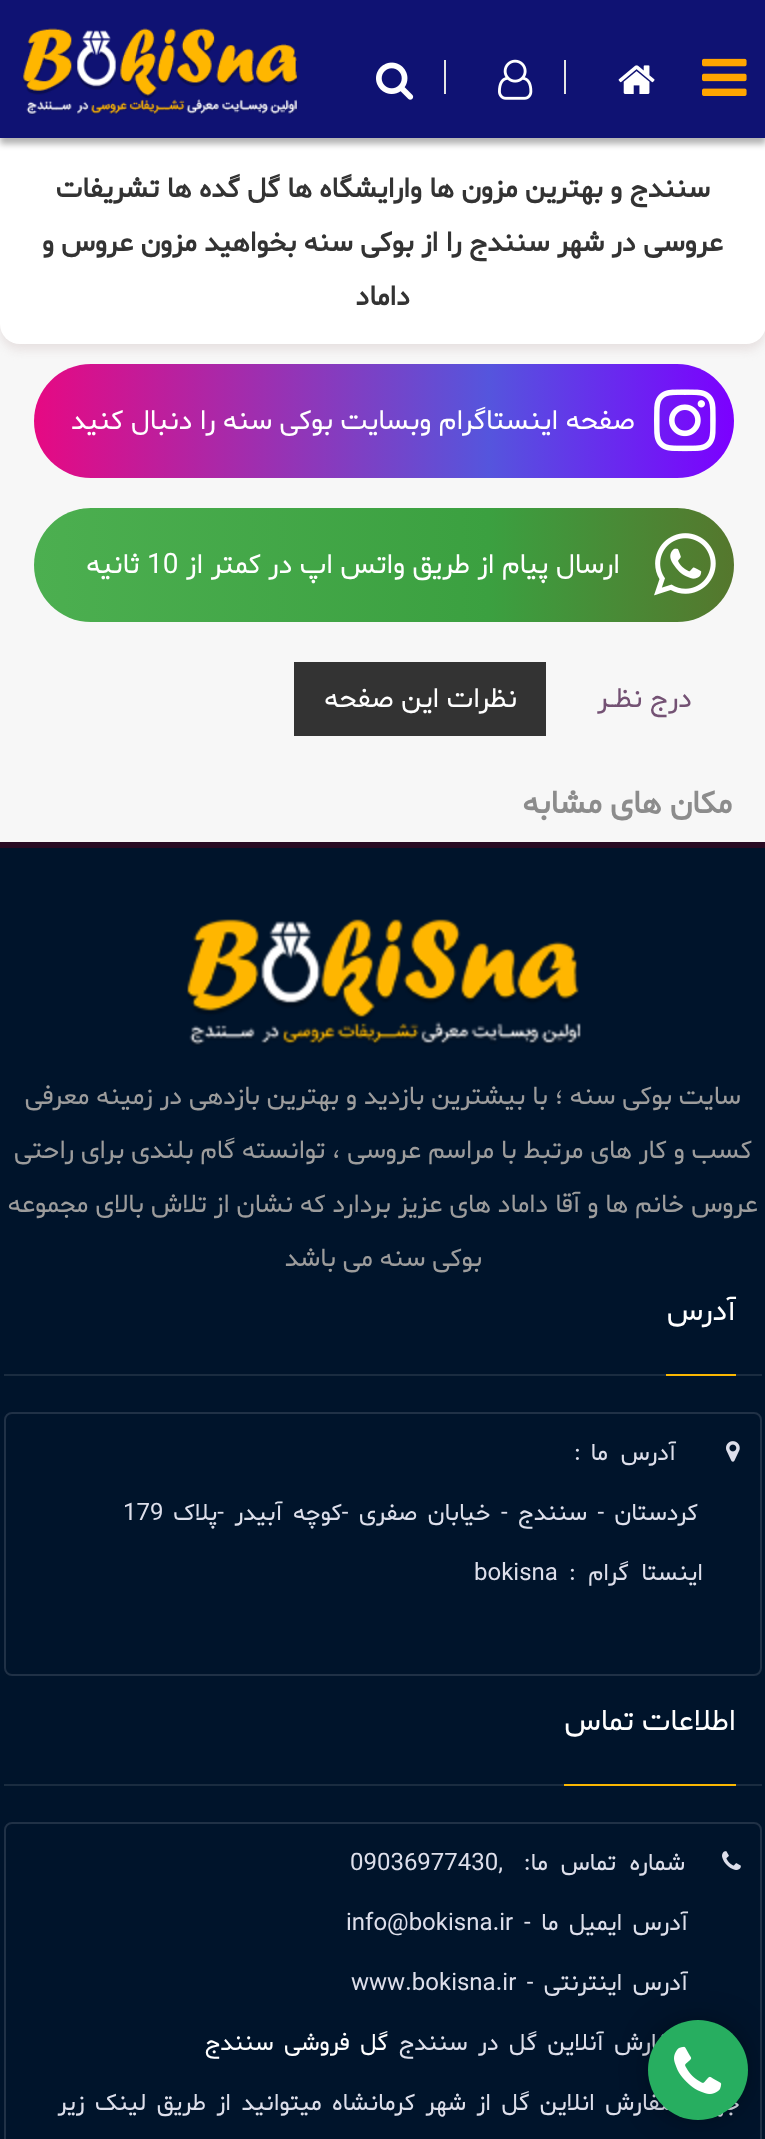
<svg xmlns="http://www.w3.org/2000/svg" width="765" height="2139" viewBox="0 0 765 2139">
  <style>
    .t1 { font: bold 28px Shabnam; direction: rtl; fill: #333; }
    .t2 { font: 28px Shabnam; direction: rtl; fill: #fff; }
    .t3 { font: 28px Shabnam; fill: #fff; }
    .t4 { font: 28px Shabnam; direction: rtl; fill: #745274; }
    .t5 { font: bold 32px Shabnam; direction: rtl; fill: #8c8c8c; }
    .t6 { font: 26px Shabnam; direction: rtl; fill: #9c9c9c; }
    .t7 { font: 30px Shabnam; direction: rtl; fill: #fff; }
    .t8 { font: 24px Shabnam; direction: rtl; fill: #dddfeb; }
    .t9 { font: 24px Shabnam; fill: #dddfeb; }
    .t10 { font: 24px Shabnam; direction: rtl; fill: #fff; }
  </style>
  <defs>
    <linearGradient id="g1" gradientUnits="userSpaceOnUse" x1="34" y1="421" x2="734" y2="421"><stop offset="0" stop-color="#e60983"/><stop offset="0.65" stop-color="#55d"/><stop offset="1" stop-color="#7c00ff"/></linearGradient>
    <linearGradient id="g2" gradientUnits="userSpaceOnUse" x1="34" y1="565" x2="734" y2="565"><stop offset="0" stop-color="#4caf50"/><stop offset="0.65" stop-color="#3ba040"/><stop offset="1" stop-color="#55772d"/></linearGradient>
  </defs>
  <rect width="100%" height="100%" fill="#f7f7f7"/>
  <rect x="0" y="94" width="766" height="256" rx="20" fill="#e7e1e1" filter="blur(5px)"/>
  <rect x="0" y="88" width="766" height="256" rx="20" fill="#fff"/>
  <rect x="0" y="6" width="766" height="138" fill="#0000004d" filter="blur(3px)"/>
  <rect x="0" y="0" width="765" height="138" fill="#0f1273"/>
  <image x="618" y="65" width="37" height="29" href="images/1.png"/>
  <rect x="564" y="60" width="2" height="34" fill="#e4e4e4"/>
  <image x="498" y="59" width="35" height="41" href="images/2.png"/>
  <rect x="444" y="60" width="2" height="34" fill="#e4e4e4"/>
  <image x="376" y="62" width="38" height="38" href="images/3.png"/>
  <image x="23" y="28" width="275" height="87" href="images/4.png"/>
  <image x="702" y="58" width="45" height="38" href="images/5.png"/>
  <text x="710" y="197" class="t1">سنندج و بهترین مزون ها وارایشگاه ها گل گده ها تشریفات</text>
  <text x="723" y="251" class="t1">عروسی در شهر سنندج را از بوکی سنه بخواهید مزون عروس و</text>
  <text x="410" y="305" class="t1">داماد</text>
  <rect x="34" y="364" width="700" height="114" rx="57" fill="url(#g1)"/>
  <image x="654" y="389" width="62" height="63" href="images/6.png"/>
  <text x="635" y="429" class="t2">صفحه اینستاگرام وبسایت بوکی سنه را دنبال کنید</text>
  <rect x="34" y="508" width="700" height="114" rx="57" fill="url(#g2)"/>
  <image x="654" y="533" width="62" height="63" href="images/7.png"/>
  <text x="620" y="573" class="t2">ارسال پیام از طریق واتس اپ در کمتر از</text>
  <text x="147" y="573" class="t3">10</text>
  <text x="140" y="573" class="t2">ثانیه</text>
  <text x="692" y="707" class="t4">درج نظــر</text>
  <rect x="294" y="662" width="252" height="74" fill="#333"/>
  <text x="517" y="707" class="t2">نظرات این صفحه</text>
  <text x="732" y="813" class="t5">مکان های مشابه</text>
  <rect x="0" y="848" width="765" height="1291" fill="#00142b"/>
  <rect x="0" y="842" width="765" height="6" fill="#290b23"/>
  <image x="187" y="919" width="394" height="127" href="images/8.png"/>
  <text x="741" y="1104" class="t6">سایت</text>
  <text x="672" y="1104" class="t6">بوکی سنه ؛ با بیشترین بازدید و بهترین بازدهی در زمینه معرفی</text>
  <text x="752" y="1158" class="t6">کسب و کار های مرتبط با مراسم عروسی ، توانسته گام بلندی برای راحتی</text>
  <text x="758" y="1212" class="t6">عروس خانم ها و آقا داماد های عزیز بردارد که نشان از تلاش بالای مجموعه</text>
  <text x="482" y="1266" class="t6">بوکی سنه می باشد</text>
  <rect x="4" y="1374" width="758" height="2" fill="#1a2c40"/>
  <rect x="666" y="1374" width="70" height="2" fill="#fab702"/>
  <text x="736" y="1320" class="t7">آدرس</text>
  <rect x="5" y="1413" width="756" height="262" rx="7" fill="none" stroke="#203146" stroke-width="2"/>
  <image x="726" y="1441" width="14" height="21" href="images/9.png"/>
  <text x="676" y="1460" class="t8">آدرس</text>
  <text x="608" y="1460" class="t8">ما</text>
  <text x="574" y="1460" class="t9">:</text>
  <text x="698" y="1520" word-spacing="4" class="t8">کردستان - سنندج - خیابان صفری -کوچه آبیدر -پلاک</text>
  <text x="123" y="1520" class="t9">179</text>
  <text x="703" y="1580" word-spacing="6" class="t8">اینستا گرام :</text>
  <text x="474" y="1580" class="t9">bokisna</text>
  <rect x="4" y="1784" width="758" height="2" fill="#1a2c40"/>
  <rect x="564" y="1784" width="172" height="2" fill="#fab702"/>
  <text x="736" y="1730" class="t7">اطلاعات تماس</text>
  <rect x="5" y="1823" width="756" height="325" rx="7" fill="none" stroke="#203146" stroke-width="2"/>
  <image x="722" y="1851" width="19" height="19" href="images/10.png"/>
  <text x="685" y="1870" word-spacing="7" class="t8">شماره تماس</text>
  <text x="548" y="1870" class="t8">ما:</text>
  <text x="350" y="1870" class="t9">09036977430,</text>
  <text x="688" y="1930" word-spacing="4" class="t8">آدرس ایمیل ما -</text>
  <text x="346" y="1930" class="t9">info@bokisna.ir</text>
  <text x="688" y="1990" word-spacing="4" class="t8">آدرس اینترنتی -</text>
  <text x="351" y="1990" class="t9">www.bokisna.ir</text>
  <text x="688" y="2050" word-spacing="4" class="t8">سفارش آنلاین گل در سنندج</text>
  <text x="388" y="2050" word-spacing="4" class="t10">گل فروشی سنندج</text>
  <text x="740" y="2110" word-spacing="4" class="t8">جهت سفارش انلاین گل از شهر کرمانشاه میتوانید از طریق لینک زیر</text>
  <rect x="664" y="2036" width="68" height="68" rx="34" fill="#000" filter="blur(20px)"/>
  <circle cx="698" cy="2070" r="50" fill="#27ae60"/>
  <image x="674" y="2046" width="48" height="48" href="images/11.png"/>
</svg>
